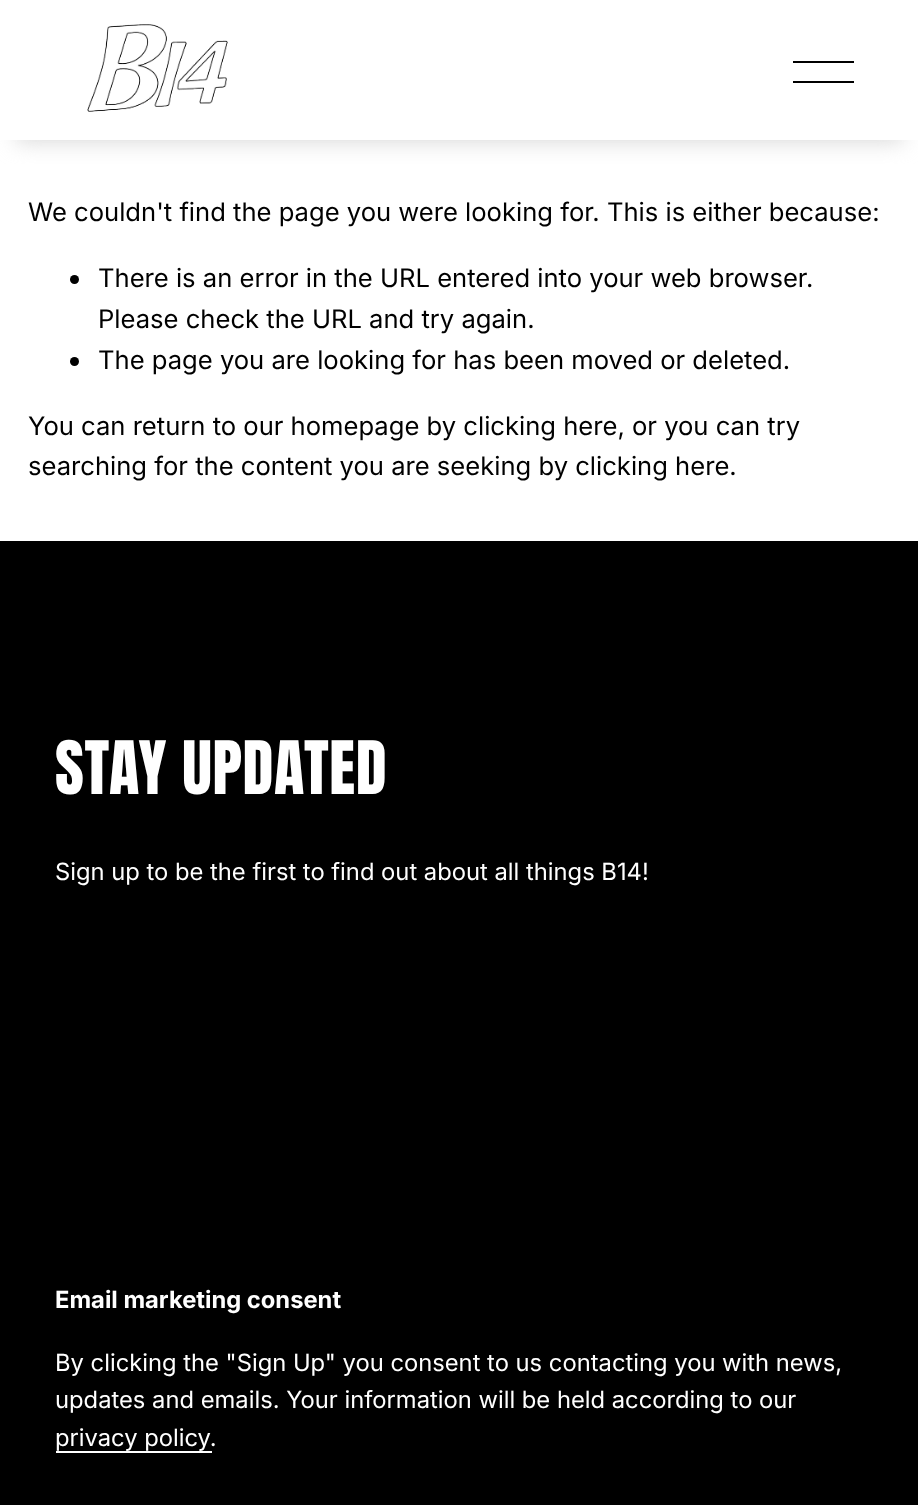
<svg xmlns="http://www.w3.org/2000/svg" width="918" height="1505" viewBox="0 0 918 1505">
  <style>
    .t1 { font: 25.6px Inter; fill: #000; }
    .t2 { font: 62.5px Anton; letter-spacing: 0.6px; fill: #fff; }
    .t3 { font: 23.75px Inter; fill: #fff; }
    .t4 { font: bold 23.75px Inter; fill: #fff; }
  </style>
  <defs>
    <clipPath id="clip1"><rect x="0" y="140" width="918" height="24"/></clipPath>
  </defs>
  <rect width="100%" height="100%" fill="#fff"/>
  <g clip-path="url(#clip1)">
    <rect x="16" y="33" width="887" height="109" fill="#d9d9d9" filter="blur(10.5px)"/>
  </g>
  <image x="87" y="24" width="141" height="88" href="images/1.png"/>
  <rect x="793" y="61" width="61" height="2" fill="#000"/>
  <rect x="793" y="81" width="61" height="2" fill="#000"/>
  <text x="28" y="221" class="t1">We couldn't find the page you were looking for. This is either because:</text>
  <circle cx="74.5" cy="279.5" r="4.5" fill="#000"/>
  <text x="98" y="287" class="t1">There is an error in the URL entered into your web browser.</text>
  <text x="98" y="328" class="t1">Please check the URL and try again.</text>
  <circle cx="74.5" cy="361.5" r="4.5" fill="#000"/>
  <text x="98" y="369" class="t1">The page you are looking for has been moved or deleted.</text>
  <text x="28" y="435" class="t1">You can return to our homepage by clicking here, or you can try</text>
  <text x="28" y="475" class="t1">searching for the content you are seeking by clicking here.</text>
  <rect x="0" y="541" width="918" height="964" fill="#000"/>
  <text x="55" y="794" class="t2">STAY UPDATED</text>
  <text x="55" y="880" class="t3">Sign up to be the first to find out about all things B14!</text>
  <text x="55" y="1308" class="t4">Email marketing consent</text>
  <text x="55" y="1371" class="t3">By clicking the "Sign Up" you consent to us contacting you with news,</text>
  <text x="55" y="1408" class="t3">updates and emails. Your information will be held according to our</text>
  <text x="55" y="1446" class="t3">privacy policy.</text>
  <rect x="56" y="1451" width="156" height="2" fill="#fff"/>
</svg>
